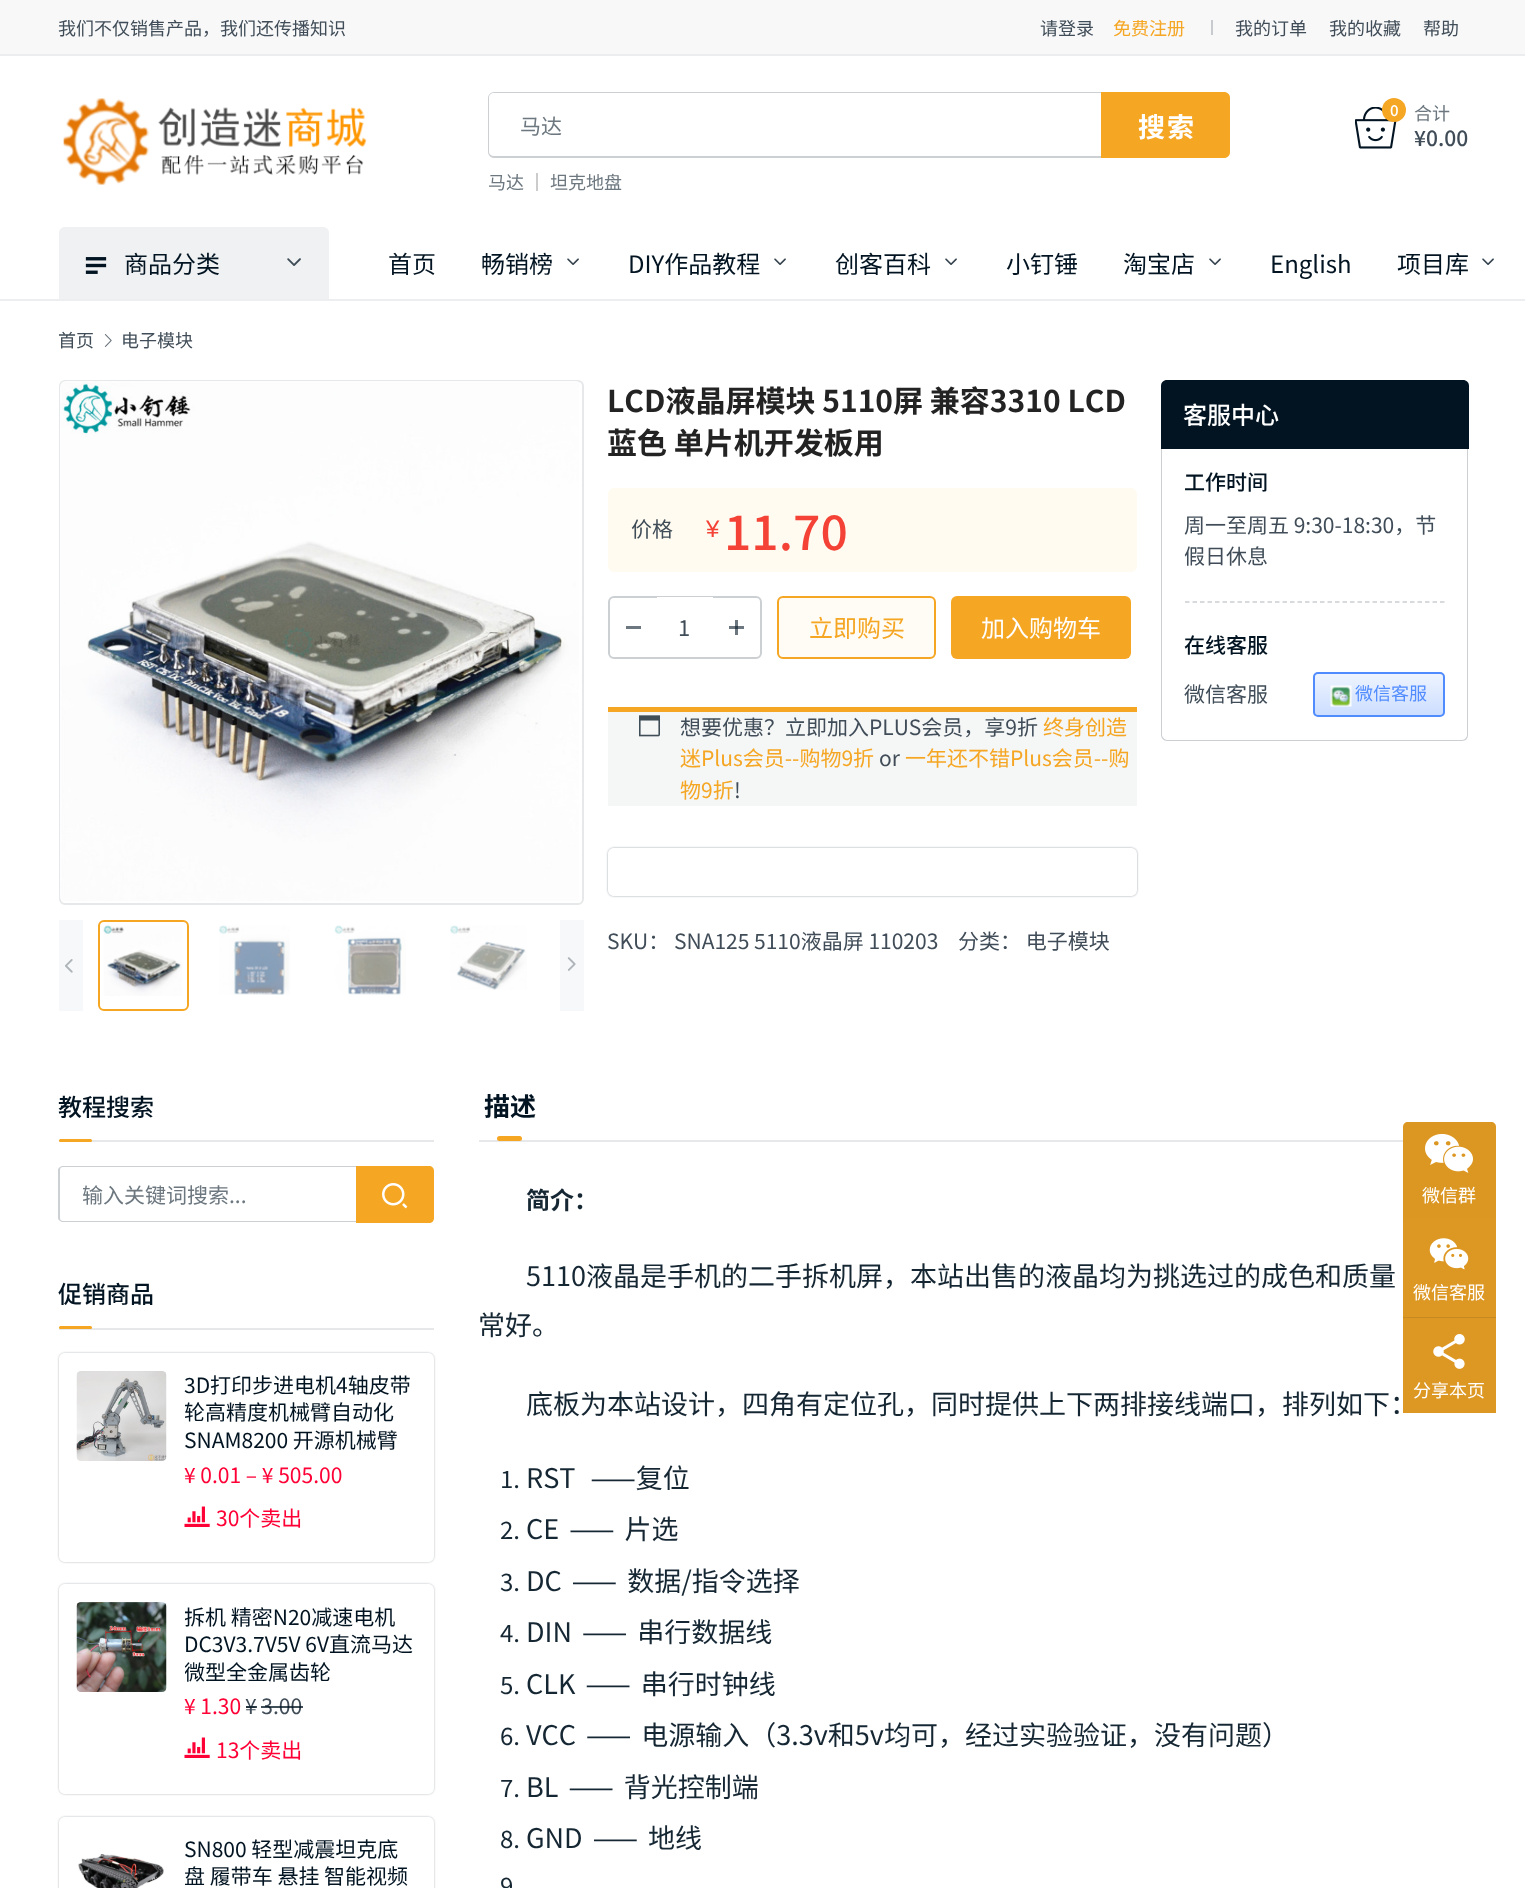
<svg xmlns="http://www.w3.org/2000/svg" width="1525" height="1888" viewBox="0 0 1525 1888">
  <style>*{font-kerning:none!important;font-variant-ligatures:none!important}</style>
  <style>
    .t1 { font: 18px Noto Sans CJK SC; fill: #404d58; }
    .t2 { font: 18px Noto Sans CJK SC; fill: #f5a623; }
    .t3 { font: 21px Noto Sans CJK SC; fill: #6c777f; }
    .t4 { font: bold 27px Noto Sans CJK SC; letter-spacing: 2px; fill: #fff; }
    .t5 { font: 18px Noto Sans CJK SC; fill: #6c777f; }
    .t6 { font: 500 15px Noto Sans CJK SC; fill: #fff; }
    .t7 { font: 500 21px Noto Sans CJK SC; fill: #404d58; }
    .t8 { font: 24px Noto Sans CJK SC; fill: #021422; }
    .t9 { font: bold 30px Noto Sans CJK SC; fill: #232323; }
    .t10 { font: 21px Noto Sans CJK SC; fill: #404d58; }
    .t11 { font: 24px Liberation Sans; fill: #f44336; }
    .t12 { font: 500 48px Noto Sans CJK SC; fill: #f44336; }
    .t13 { font: 22px Noto Sans CJK SC; fill: #404d58; }
    .t14 { font: 24px Noto Sans CJK SC; fill: #f5a623; }
    .t15 { font: 24px Noto Sans CJK SC; fill: #fff; }
    .t16 { font: 21px Noto Sans CJK SC; fill: #f5a623; }
    .t17 { font: 500 24px Noto Sans CJK SC; fill: #fff; }
    .t18 { font: 500 21px Noto Sans CJK SC; fill: #021422; }
    .t19 { font: 18px Noto Sans CJK SC; fill: #518cff; }
    .t20 { font: 500 24px Noto Sans CJK SC; fill: #021422; }
    .t21 { font: 21px Noto Sans CJK SC; fill: #021422; }
    .t22 { font: 21px Noto Sans CJK SC; fill: #ff0036; }
    .t23 { font: bold 26px Noto Sans CJK SC; fill: #021422; }
    .t24 { font: bold 24px Noto Sans CJK SC; fill: #162734; }
    .t25 { font: 27px Noto Sans CJK SC; fill: #162734; }
    .t26 { font: 24px Noto Sans CJK SC; fill: #162734; }
    .t27 { font: 18px Noto Sans CJK SC; fill: #fff; }
  </style>
  <defs>
    <clipPath id="clip1"><path d="M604 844H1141V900H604ZM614 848H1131C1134.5 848 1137 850.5 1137 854V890C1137 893.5 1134.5 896 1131 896H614C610.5 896 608 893.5 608 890V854C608 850.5 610.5 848 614 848Z" clip-rule="evenodd"/></clipPath>
    <clipPath id="clip2"><rect x="1313" y="672" width="132" height="45" rx="5"/></clipPath>
    <linearGradient id="g1" gradientUnits="userSpaceOnUse" x1="1379" y1="674" x2="1379" y2="716"><stop offset="0" stop-color="#eef4ff"/><stop offset="1" stop-color="#cbddff"/></linearGradient>
    <clipPath id="clip3"><rect x="83" y="1179" width="250" height="30"/></clipPath>
    <clipPath id="clip4"><path d="M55 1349H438V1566H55ZM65 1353H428C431.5 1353 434 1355.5 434 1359V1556C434 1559.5 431.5 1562 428 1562H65C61.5 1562 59 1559.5 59 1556V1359C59 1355.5 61.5 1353 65 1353Z" clip-rule="evenodd"/></clipPath>
    <clipPath id="clip5"><rect x="185" y="1371" width="231" height="81"/></clipPath>
    <clipPath id="clip6"><path d="M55 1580H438V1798H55ZM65 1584H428C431.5 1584 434 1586.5 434 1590V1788C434 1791.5 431.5 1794 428 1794H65C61.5 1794 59 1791.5 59 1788V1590C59 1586.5 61.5 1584 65 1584Z" clip-rule="evenodd"/></clipPath>
    <clipPath id="clip7"><rect x="185" y="1602" width="231" height="83"/></clipPath>
    <clipPath id="clip8"><path d="M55 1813H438V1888H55ZM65 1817H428C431.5 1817 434 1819.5 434 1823V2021C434 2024.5 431.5 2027 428 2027H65C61.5 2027 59 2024.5 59 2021V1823C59 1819.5 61.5 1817 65 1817Z" clip-rule="evenodd"/></clipPath>
    <clipPath id="clip9"><rect x="185" y="1835" width="231" height="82"/></clipPath>
  </defs>
  <rect width="100%" height="100%" fill="#fff"/>
  <rect x="729" y="626" width="15" height="3" fill="#6c777f"/>
  <rect x="0" y="299" width="1525" height="2" fill="#edeeef"/>
  <rect x="0" y="0" width="1525" height="54" fill="#f8f8f9"/>
  <rect x="0" y="54" width="1525" height="2" fill="#ecedee"/>
  <text x="58" y="35" class="t1">我们不仅销售产品，我们还传播知识</text>
  <text x="1040" y="35" class="t1">请登录</text>
  <text x="1113" y="35" class="t2">免费注册</text>
  <rect x="1211" y="20" width="2" height="15" fill="#c7cace"/>
  <text x="1235" y="35" class="t1">我的订单</text>
  <text x="1329" y="35" class="t1">我的收藏</text>
  <text x="1423" y="35" class="t1">帮助</text>
  <image x="63" y="98" width="304" height="87" href="images/1.png"/>
  <path d="M494 92C491 92 488 95 488 98V152C488 155 491 158 494 158H1101V156H494C491 156 489 154 489 152V98C489 95 491 93 494 93H1101V92Z" fill="#ccd0d3"/>
  <text x="520" y="134" class="t3">马达</text>
  <path d="M1101 92H1224C1227.5 92 1230 94.5 1230 98V152C1230 155.5 1227.5 158 1224 158H1101Z" fill="#f5a623"/>
  <text x="1138" y="137" class="t4">搜索</text>
  <rect x="536" y="173" width="2" height="18" fill="#ccc"/>
  <text x="488" y="189" class="t5">马达</text>
  <text x="550" y="189" class="t5">坦克地盘</text>
  <image x="1355" y="107" width="42" height="42" href="images/2.png"/>
  <circle cx="1394" cy="110" r="12" fill="#f5a623"/>
  <text x="1390" y="116" class="t6">0</text>
  <text x="1414" y="120" class="t5">合计</text>
  <text x="1414" y="146" class="t7">¥0.00</text>
  <path d="M65 227H323C326.5 227 329 229.5 329 233V299H59V233C59 229.5 61.5 227 65 227Z" fill="#f0f1f2"/>
  <image x="85" y="257" width="22" height="17" href="images/3.png"/>
  <text x="124" y="273" class="t8">商品分类</text>
  <image x="287" y="258" width="14" height="8" href="images/4.png"/>
  <text x="388" y="273" class="t8">首页</text>
  <text x="481" y="273" class="t8">畅销榜</text>
  <image x="567" y="258" width="12" height="7" href="images/5.png"/>
  <text x="628" y="273" class="t8">DIY作品教程</text>
  <image x="774" y="258" width="12" height="7" href="images/5.png"/>
  <text x="835" y="273" class="t8">创客百科</text>
  <image x="945" y="258" width="12" height="7" href="images/5.png"/>
  <text x="1006" y="273" class="t8">小钉锤</text>
  <text x="1123" y="273" class="t8">淘宝店</text>
  <image x="1209" y="258" width="12" height="7" href="images/5.png"/>
  <text x="1270" y="273" class="t8">English</text>
  <text x="1397" y="273" class="t8">项目库</text>
  <image x="1482" y="258" width="12" height="7" href="images/5.png"/>
  <text x="58" y="347" class="t1">首页</text>
  <image x="104" y="334" width="8" height="13" href="images/6.png"/>
  <text x="121" y="347" class="t1">电子模块</text>
  <rect x="60" y="381" width="523" height="523" rx="5" fill="none" stroke="#e6e8e9" stroke-width="2"/>
  <image x="60" y="381" width="519" height="520" href="images/7.png"/>
  <rect x="59" y="920" width="24" height="91" fill="#f7f8f9"/>
  <image x="65" y="959" width="8" height="14" href="images/8.png"/>
  <rect x="99" y="921" width="89" height="89" rx="5" fill="none" stroke="#f5a623" stroke-width="2"/>
  <image x="103" y="925" width="79" height="71" href="images/9.png"/>
  <image x="219" y="925" width="71" height="70" href="images/10.png"/>
  <image x="334" y="925" width="72" height="70" href="images/11.png"/>
  <image x="450" y="925" width="77" height="65" href="images/12.png"/>
  <rect x="560" y="920" width="24" height="91" fill="#f7f8f9"/>
  <image x="567" y="957" width="9" height="14" href="images/13.png"/>
  <text x="607" y="412" class="t9">LCD液晶屏模块 5110屏 兼容3310 LCD</text>
  <text x="607" y="454" class="t9">蓝色 单片机开发板用</text>
  <rect x="608" y="488" width="529" height="84" rx="6" fill="#fffbf1"/>
  <text x="631" y="537" class="t10">价格</text>
  <text x="706" y="537" class="t11">¥</text>
  <text x="724" y="550" class="t12">11.70</text>
  <rect x="609" y="597" width="152" height="61" rx="5" fill="none" stroke="#ccd0d3" stroke-width="2"/>
  <rect x="626" y="626" width="15" height="3" fill="#6c777f"/>
  <rect x="657" y="597" width="56" height="1" fill="#fff"/>
  <text x="678" y="636" class="t13">1</text>
  <rect x="735" y="620" width="3" height="15" fill="#6c777f"/>
  <rect x="735" y="626" width="3" height="3" fill="#2f3e49"/>
  <rect x="778" y="597" width="157" height="61" rx="5" fill="none" stroke="#f5a623" stroke-width="2"/>
  <rect x="779" y="597" width="156" height="60" fill="#f5a6230a"/>
  <text x="809" y="637" class="t14">立即购买</text>
  <rect x="951" y="596" width="180" height="63" rx="6" fill="#f5a623"/>
  <text x="981" y="637" class="t15">加入购物车</text>
  <rect x="608" y="712" width="529" height="94" fill="#f5f6f6"/>
  <rect x="608" y="707" width="529" height="5" fill="#f5a623"/>
  <image x="639" y="715" width="21" height="22" href="images/14.png"/>
  <text x="680" y="735" class="t10">想要优惠？立即加入PLUS会员，享9折</text>
  <text x="1043" y="735" class="t16">终身创造</text>
  <text x="680" y="766" class="t16">迷Plus会员--购物9折</text>
  <text x="879" y="766" class="t10">or</text>
  <text x="905" y="766" class="t16">一年还不错Plus会员--购</text>
  <text x="680" y="798" class="t16">物9折</text>
  <text x="734" y="798" class="t10">!</text>
  <g clip-path="url(#clip1)">
    <rect x="608" y="848" width="529" height="48" rx="6" fill="#02142266" filter="blur(1px)"/>
  </g>
  <text x="607" y="949" class="t10">SKU： SNA125 5110液晶屏 110203</text>
  <text x="958" y="949" class="t10">分类： 电子模块</text>
  <path d="M1167 380H1463C1466.5 380 1469 382.5 1469 386V449H1161V386C1161 382.5 1163.5 380 1167 380Z" fill="#021422"/>
  <text x="1183" y="424" class="t17">客服中心</text>
  <path d="M1161 448H1468V735C1468 738 1466 741 1462 741H1167C1164 741 1161 738 1161 735ZM1162 448H1467V735C1467 737 1465 740 1462 740H1167C1165 740 1162 737 1162 735Z" fill="#02142233" fill-rule="evenodd"/>
  <text x="1184" y="490" class="t18">工作时间</text>
  <text x="1184" y="533" class="t10">周一至周五 9:30-18:30，节</text>
  <text x="1184" y="564" class="t10">假日休息</text>
  <path d="M1185 602H1444.5" fill="none" stroke="#ccd0d3" stroke-width="1.5" stroke-dasharray="4.5 3"/>
  <text x="1184" y="653" class="t18">在线客服</text>
  <text x="1184" y="702" class="t10">微信客服</text>
  <g clip-path="url(#clip2)">
    <rect x="1313" y="674" width="132" height="42" fill="url(#g1)"/>
  </g>
  <rect x="1314" y="673" width="130" height="43" rx="4" fill="none" stroke="#518cff" stroke-width="2"/>
  <image x="1330" y="685" width="22" height="22" href="images/15.png"/>
  <text x="1355" y="700" class="t19">微信客服</text>
  <rect x="59" y="1140" width="375" height="2" fill="#e6e8e9"/>
  <text x="58" y="1116" class="t20">教程搜索</text>
  <rect x="59" y="1139" width="33" height="3" rx="1.5" fill="#f5a623"/>
  <path d="M63 1166H356V1222H63C61 1222 58 1220 58 1218V1170C58 1168 61 1166 63 1166ZM63 1167H356V1221H63C61 1221 60 1220 60 1218V1170C60 1168 61 1167 63 1167Z" fill="#ccd0d3" fill-rule="evenodd"/>
  <g clip-path="url(#clip3)">
    <text x="82" y="1203" class="t3">输入关键词搜索...</text>
  </g>
  <path d="M356 1166H429C432 1166 434 1168 434 1171V1218C434 1221 432 1223 429 1223H356Z" fill="#f5a623"/>
  <image x="382" y="1183" width="26" height="26" href="images/16.png"/>
  <rect x="59" y="1328" width="375" height="2" fill="#e6e8e9"/>
  <text x="58" y="1303" class="t20">促销商品</text>
  <rect x="59" y="1326" width="33" height="3" rx="1.5" fill="#f5a623"/>
  <g clip-path="url(#clip4)">
    <rect x="59" y="1353" width="375" height="209" rx="6" fill="#0214224d" filter="blur(1px)"/>
  </g>
  <image x="76" y="1371" width="91" height="90" href="images/17.png"/>
  <text x="184" y="1393" class="t21">3D打印步进电机4轴皮带</text>
  <g clip-path="url(#clip5)">
    <text x="184" y="1420" class="t21">轮高精度机械臂自动化</text>
  </g>
  <text x="184" y="1448" class="t21">SNAM8200 开源机械臂</text>
  <text x="184" y="1483" class="t22">¥ 0.01 – ¥ 505.00</text>
  <image x="184" y="1506" width="26" height="21" href="images/18.png"/>
  <text x="216" y="1526" class="t22">30个卖出</text>
  <g clip-path="url(#clip6)">
    <rect x="59" y="1584" width="375" height="210" rx="6" fill="#0214224d" filter="blur(1px)"/>
  </g>
  <image x="76" y="1602" width="91" height="90" href="images/19.png"/>
  <g clip-path="url(#clip7)">
    <text x="184" y="1625" class="t21">拆机 精密N20减速电机</text>
  </g>
  <text x="184" y="1652" class="t21">DC3V3.7V5V 6V直流马达</text>
  <g clip-path="url(#clip7)">
    <text x="184" y="1680" class="t21">微型全金属齿轮</text>
  </g>
  <text x="184" y="1714" class="t22">¥ 1.30</text>
  <text x="245" y="1714" class="t10">¥ 3.00</text>
  <rect x="246" y="1706" width="11" height="2" fill="#021422bf"/>
  <rect x="261" y="1706" width="42" height="2" fill="#021422bf"/>
  <image x="184" y="1737" width="26" height="21" href="images/18.png"/>
  <text x="216" y="1758" class="t22">13个卖出</text>
  <g clip-path="url(#clip8)">
    <rect x="59" y="1817" width="375" height="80" rx="6" fill="#0214224d" filter="blur(1px)"/>
  </g>
  <image x="77" y="1835" width="89" height="53" href="images/20.png"/>
  <text x="184" y="1857" class="t21">SN800 轻型减震坦克底</text>
  <g clip-path="url(#clip9)">
    <text x="184" y="1884" class="t21">盘 履带车 悬挂 智能视频</text>
  </g>
  <rect x="479" y="1140" width="924" height="2" fill="#e6e8e9"/>
  <text x="484" y="1116" class="t23">描述</text>
  <rect x="497" y="1136" width="25" height="5" rx="2.5" fill="#f5a623"/>
  <text x="526" y="1209" class="t24">简介：</text>
  <text x="526" y="1286" class="t25">5110液晶是手机的二手拆机屏，本站出售的液晶均为挑选过的成色和质量</text>
  <text x="478" y="1335" class="t25">常好。</text>
  <text x="526" y="1414" class="t25">底板为本站设计，四角有定位孔，同时提供上下两排接线端口，排列如下：</text>
  <text x="500" y="1488" class="t26">1.</text>
  <text x="526" y="1488" word-spacing="9" class="t25">RST ——复位</text>
  <text x="500" y="1539" class="t26">2.</text>
  <text x="526" y="1539" word-spacing="4" class="t25">CE —— 片选</text>
  <text x="500" y="1591" class="t26">3.</text>
  <text x="526" y="1591" word-spacing="4" class="t25">DC —— 数据/指令选择</text>
  <text x="500" y="1642" class="t26">4.</text>
  <text x="526" y="1642" word-spacing="4" class="t25">DIN —— 串行数据线</text>
  <text x="500" y="1694" class="t26">5.</text>
  <text x="526" y="1694" word-spacing="4" class="t25">CLK —— 串行时钟线</text>
  <text x="500" y="1745" class="t26">6.</text>
  <text x="526" y="1745" word-spacing="4" class="t25">VCC —— 电源输入（3.3v和5v均可，经过实验验证，没有问题）</text>
  <text x="500" y="1797" class="t26">7.</text>
  <text x="526" y="1797" word-spacing="4" class="t25">BL —— 背光控制端</text>
  <text x="500" y="1848" class="t26">8.</text>
  <text x="526" y="1848" word-spacing="4" class="t25">GND —— 地线</text>
  <text x="500" y="1895" class="t26">9</text>
  <path d="M1408 1122H1491C1494 1122 1496 1124 1496 1127V1218H1403V1127C1403 1124 1405 1122 1408 1122Z" fill="#f5a623"/>
  <path d="M1408 1122H1491C1494 1122 1496 1124 1496 1127V1218H1403V1127C1403 1124 1405 1122 1408 1122Z" fill="#0214221a"/>
  <image x="1425" y="1134" width="48" height="39" href="images/21.png"/>
  <text x="1422" y="1202" class="t27">微信群</text>
  <rect x="1403" y="1218" width="93" height="99" fill="#dd9723"/>
  <image x="1429" y="1238" width="40" height="32" href="images/22.png"/>
  <text x="1413" y="1299" class="t27">微信客服</text>
  <rect x="1403" y="1318" width="93" height="95" fill="#dd9723"/>
  <rect x="1403" y="1317" width="93" height="1" fill="#c78a23"/>
  <image x="1433" y="1334" width="32" height="35" href="images/23.png"/>
  <text x="1413" y="1397" class="t27">分享本页</text>
</svg>
